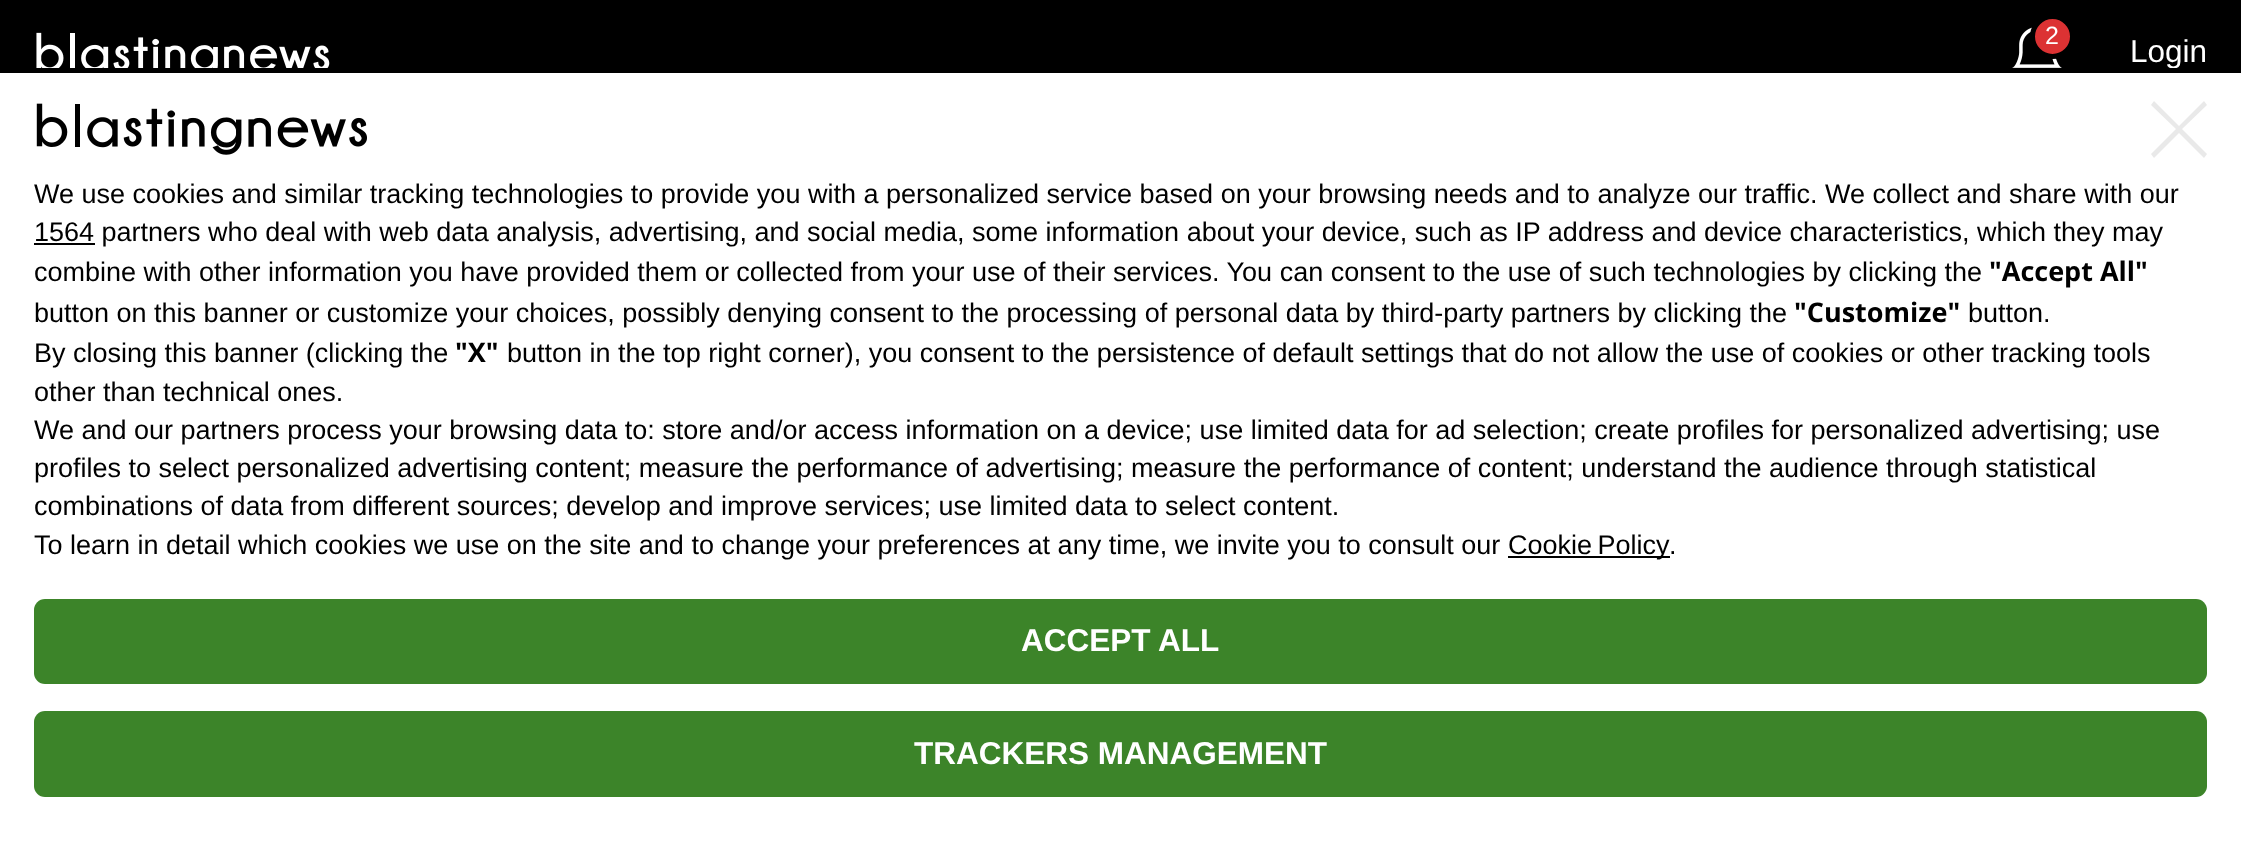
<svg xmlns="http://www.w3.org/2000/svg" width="2241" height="844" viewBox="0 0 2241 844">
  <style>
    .t1 { font: 25px Liberation Sans; fill: #fff; }
    .t2 { font: 31.5px Liberation Sans; fill: #fff; }
    .t3 { font: 27px Liberation Sans; fill: #000; }
    .t4 { font: bold 27px Open Sans; fill: #000; }
    .t5 { font: bold 31.5px Liberation Sans; fill: #fff; }
  </style>
  <rect width="100%" height="100%" fill="#000"/>
  <image x="36" y="32" width="294" height="36" href="images/1.png"/>
  <image x="2012" y="27" width="50" height="41" href="images/2.png"/>
  <circle cx="2052.5" cy="36.5" r="20" fill="#dc3233" stroke="#000" stroke-width="5"/>
  <text x="2045" y="44" class="t1">2</text>
  <text x="2130" y="62" class="t2">Login</text>
  <rect x="0" y="73" width="2241" height="771" fill="#fff"/>
  <rect x="2170" y="68" width="7" height="1" fill="#000"/>
  <image x="36" y="103" width="331" height="52" href="images/3.png"/>
  <path d="M2207 105L2204 101L2179 126L2154 101L2151 105L2176 129L2151 154L2154 158L2179 133L2204 158L2207 154L2182 129Z" fill="#e9e9e9"/>
  <text x="34" y="203" class="t3">We use cookies and similar tracking technologies to provide you with a personalized service based on your browsing needs and to analyze our traffic. We collect and share with our</text>
  <rect x="34" y="243" width="61" height="2" fill="#000"/>
  <text x="34" y="241" class="t3">1564 partners who deal with web data analysis, advertising, and social media, some information about your device, such as IP address and device characteristics, which they may</text>
  <text x="34" y="281" class="t3">combine with other information you have provided them or collected from your use of their services. You can consent to the use of such technologies by clicking the</text>
  <text x="1989" y="281" class="t4">"Accept All"</text>
  <text x="34" y="322" class="t3">button on this banner or customize your choices, possibly denying consent to the processing of personal data by third-party partners by clicking the</text>
  <text x="1794" y="322" class="t4">"Customize"</text>
  <text x="1968" y="322" class="t3">button.</text>
  <text x="34" y="362" class="t3">By closing this banner (clicking the</text>
  <text x="455" y="362" class="t4">"X"</text>
  <text x="507" y="362" class="t3">button in the top right corner), you consent to the persistence of default settings that do not allow the use of cookies or other tracking tools</text>
  <text x="34" y="401" class="t3">other than technical ones.</text>
  <text x="34" y="439" class="t3">We and our partners process your browsing data to: store and/or access information on a device; use limited data for ad selection; create profiles for personalized advertising; use</text>
  <text x="34" y="477" class="t3">profiles to select personalized advertising content; measure the performance of advertising; measure the performance of content; understand the audience through statistical</text>
  <text x="34" y="515" class="t3">combinations of data from different sources; develop and improve services; use limited data to select content.</text>
  <text x="34" y="554" class="t3">To learn in detail which cookies we use on the site and to change your preferences at any time, we invite you to consult our</text>
  <rect x="1508" y="556" width="162" height="2" fill="#000"/>
  <text x="1508" y="554" word-spacing="-2" class="t3">Cookie Policy</text>
  <text x="1669" y="554" class="t3">.</text>
  <rect x="34" y="599" width="2173" height="85" rx="11" fill="#3c8429"/>
  <text x="1021" y="651" class="t5">ACCEPT ALL</text>
  <rect x="34" y="711" width="2173" height="86" rx="11" fill="#3c8429"/>
  <text x="914" y="764" class="t5">TRACKERS MANAGEMENT</text>
</svg>
